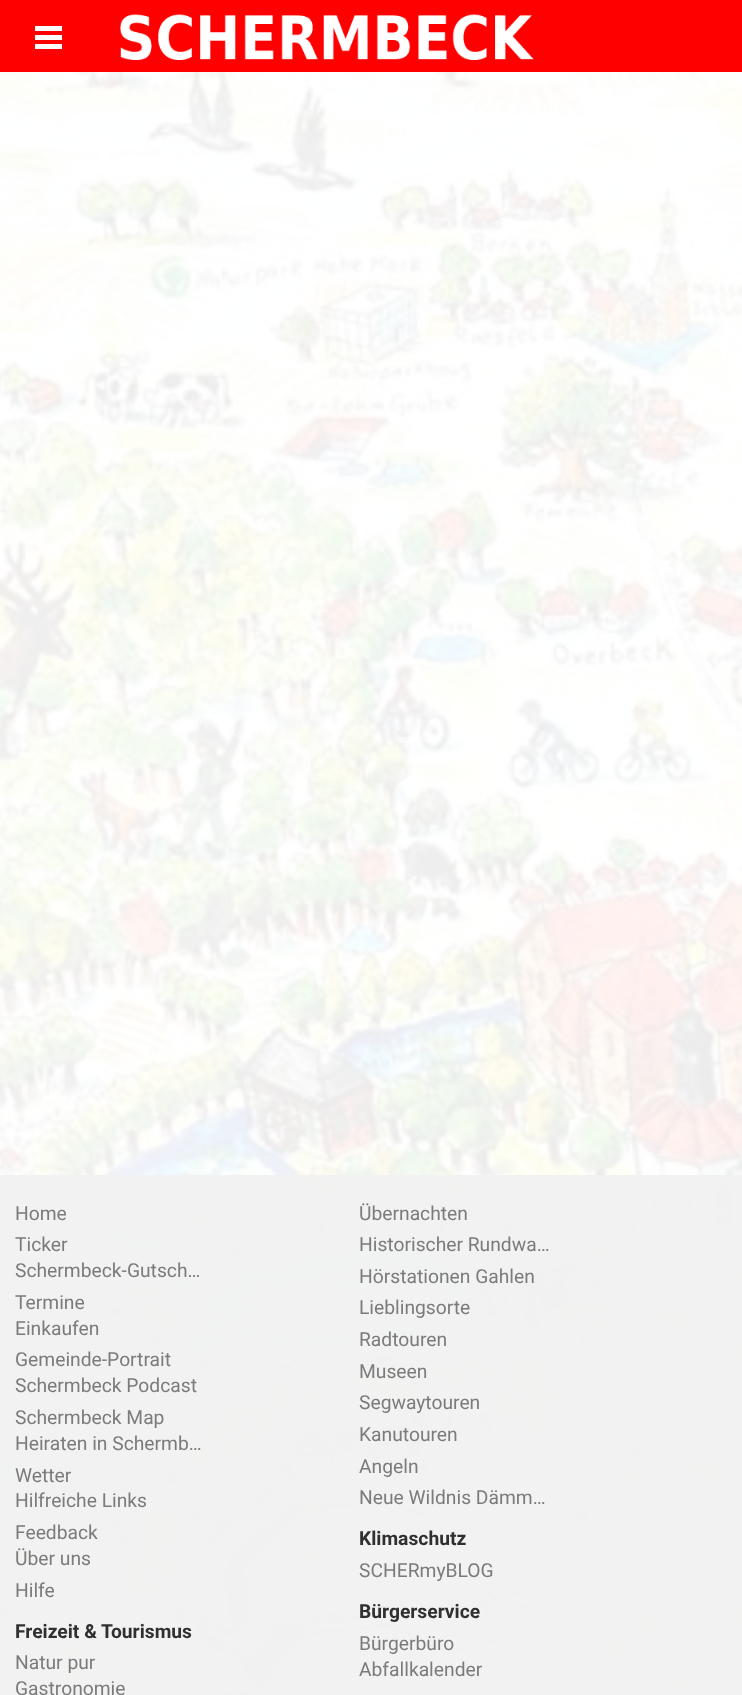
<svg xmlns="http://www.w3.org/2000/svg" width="742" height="1695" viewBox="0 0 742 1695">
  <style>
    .t1 { font: 19.25px Roboto; fill: #7b7b7b; }
    .t2 { font: bold 19.25px Roboto; fill: #303030; }
  </style>
  <rect width="100%" height="100%" fill="#fff"/>
  <image x="0" y="72" width="742" height="1623" href="images/1.png"/>
  <rect x="0" y="0" width="742" height="72" fill="#f00"/>
  <rect x="35" y="26" width="27" height="5" fill="#fff"/>
  <rect x="35" y="35" width="27" height="5" fill="#fff"/>
  <rect x="35" y="44" width="27" height="5" fill="#fff"/>
  <image x="120" y="14" width="414" height="46" href="images/2.png"/>
  <rect x="0" y="1175" width="742" height="520" fill="#f1f1f1f2"/>
  <text x="359" y="1220" class="t1">Übernachten</text>
  <text x="359" y="1251" class="t1">Historischer Rundwa…</text>
  <text x="359" y="1283" class="t1">Hörstationen Gahlen</text>
  <text x="359" y="1314" class="t1">Lieblingsorte</text>
  <text x="359" y="1346" class="t1">Radtouren</text>
  <text x="359" y="1378" class="t1">Museen</text>
  <text x="359" y="1409" class="t1">Segwaytouren</text>
  <text x="359" y="1441" class="t1">Kanutouren</text>
  <text x="359" y="1473" class="t1">Angeln</text>
  <text x="359" y="1504" class="t1">Neue Wildnis Dämm…</text>
  <text x="15" y="1638" class="t2">Freizeit &amp; Tourismus</text>
  <text x="15" y="1669" class="t1">Natur pur</text>
  <text x="15" y="1695" class="t1">Gastronomie</text>
  <text x="15" y="1220" class="t1">Home</text>
  <text x="15" y="1251" class="t1">Ticker</text>
  <text x="15" y="1277" class="t1">Schermbeck-Gutsch…</text>
  <text x="15" y="1309" class="t1">Termine</text>
  <text x="15" y="1335" class="t1">Einkaufen</text>
  <text x="15" y="1366" class="t1">Gemeinde-Portrait</text>
  <text x="15" y="1392" class="t1">Schermbeck Podcast</text>
  <text x="15" y="1424" class="t1">Schermbeck Map</text>
  <text x="15" y="1450" class="t1">Heiraten in Schermb…</text>
  <text x="15" y="1482" class="t1">Wetter</text>
  <text x="15" y="1507" class="t1">Hilfreiche Links</text>
  <text x="15" y="1539" class="t1">Feedback</text>
  <text x="15" y="1565" class="t1">Über uns</text>
  <text x="15" y="1597" class="t1">Hilfe</text>
  <text x="359" y="1545" class="t2">Klimaschutz</text>
  <text x="359" y="1577" class="t1">SCHERmyBLOG</text>
  <text x="359" y="1618" class="t2">Bürgerservice</text>
  <text x="359" y="1650" class="t1">Bürgerbüro</text>
  <text x="359" y="1676" class="t1">Abfallkalender</text>
</svg>
